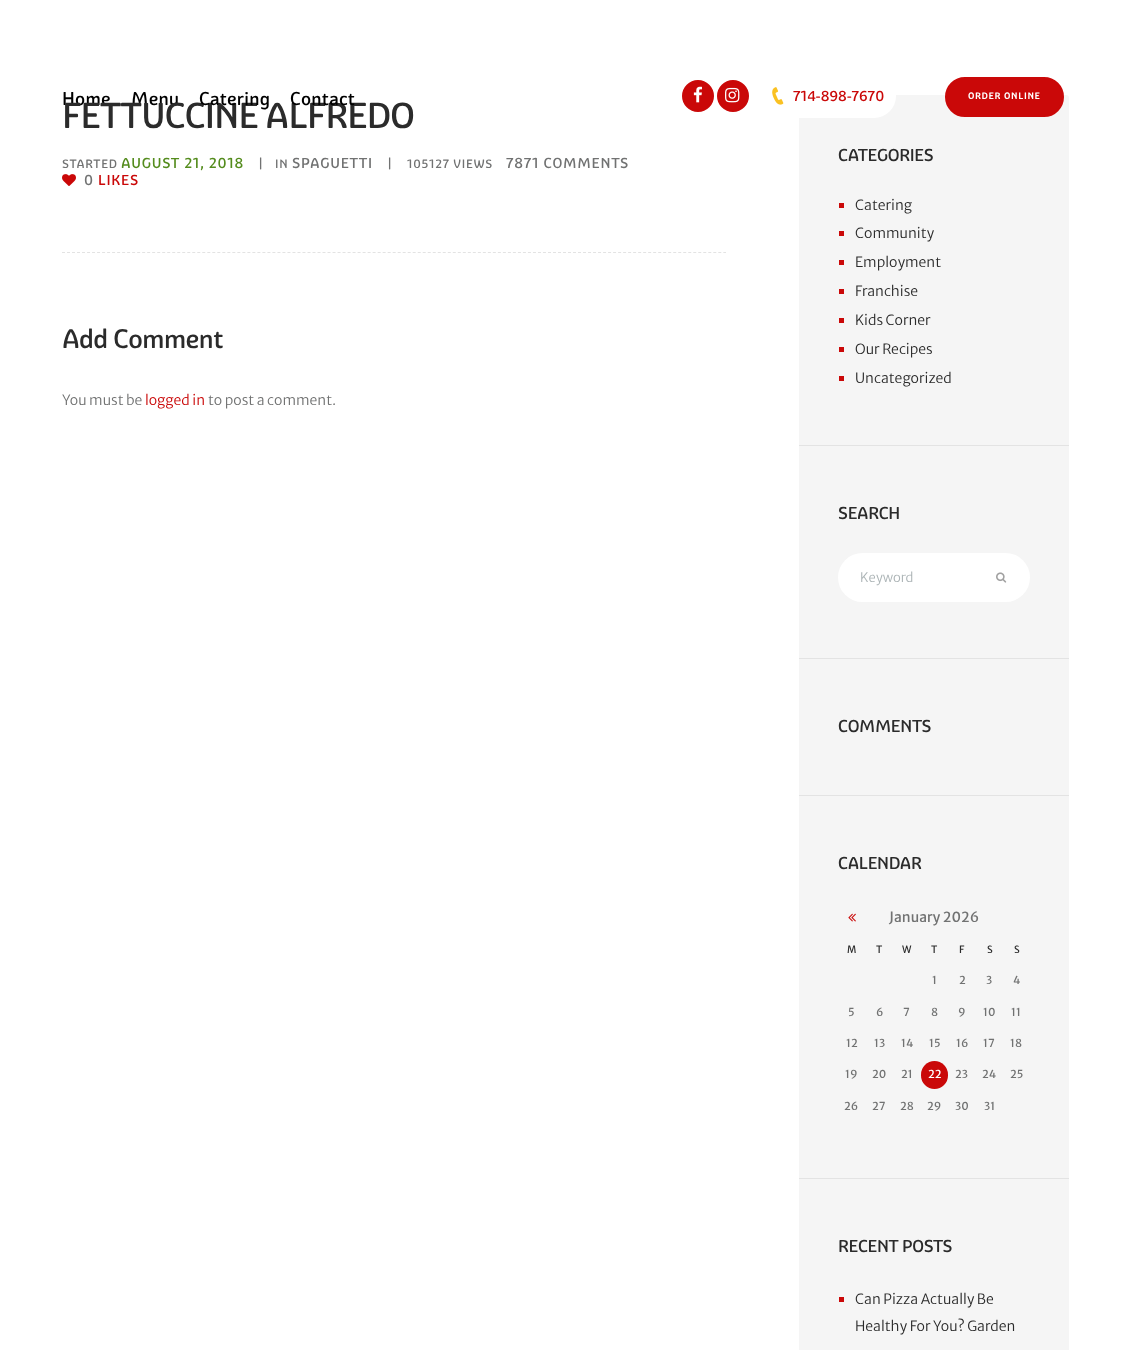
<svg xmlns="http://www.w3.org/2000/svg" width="1131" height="1350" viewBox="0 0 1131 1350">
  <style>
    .t1 { font: 500 18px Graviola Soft; letter-spacing: 0.25px; fill: #000; }
    .t2 { font: 500 35px Graviola Soft; letter-spacing: -0.75px; fill: #2b2b2b; }
    .t3 { font: 500 14px Graviola Soft; fill: #ca0808; }
    .t4 { font: bold 8.75px Graviola Soft; letter-spacing: 0.9px; fill: #fff; }
    .t5 { font: 500 11.75px Graviola Soft; letter-spacing: 0.75px; fill: #717272; }
    .t6 { font: 500 14px Graviola Soft; letter-spacing: 0.75px; fill: #717272; }
    .t7 { font: 500 14px Graviola Soft; letter-spacing: 0.75px; fill: #ca0808; }
    .t8 { font: 500 14px Graviola Soft; letter-spacing: 0.75px; fill: #548c1d; }
    .t9 { font: 500 26px Graviola Soft; letter-spacing: -0.5px; fill: #2b2b2b; }
    .t10 { font: 300 14px Merriweather Sans; fill: #717272; }
    .t11 { font: 300 14px Merriweather Sans; fill: #ca0808; }
    .t12 { font: 500 16.75px Graviola Soft; letter-spacing: -0.3px; fill: #2b2b2b; }
    .t13 { font: 300 14px Merriweather Sans; fill: #2b2b2b; }
    .t14 { font: 300 13px Merriweather Sans; fill: #acb4b6; }
    .t15 { font: 14px Merriweather Sans; fill: #717272; }
    .t16 { font: 10px Merriweather Sans; fill: #2b2b2b; }
    .t17 { font: 11px Merriweather Sans; fill: #717272; }
    .t18 { font: 11px Merriweather Sans; fill: #fff; }
  </style>
  <rect width="100%" height="100%" fill="#fff"/>
  <text x="62" y="105" class="t1">Home</text>
  <text x="131" y="105" class="t1">Menu</text>
  <text x="62" y="128" class="t2">FETTUCCINE ALFREDO</text>
  <text x="199" y="105" class="t1">Catering</text>
  <text x="290" y="105" class="t1">Contact</text>
  <circle cx="698" cy="96" r="15" fill="#ca0808" stroke="#ca0808" stroke-width="2"/>
  <image x="693" y="86" width="9" height="17" href="images/1.png"/>
  <circle cx="733" cy="96" r="15" fill="#ca0808" stroke="#ca0808" stroke-width="2"/>
  <image x="725" y="87" width="15" height="16" href="images/2.png"/>
  <rect x="799" y="95" width="270" height="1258" rx="3" fill="#f5f5f5"/>
  <rect x="757" y="74" width="139" height="44" rx="22" fill="#fff"/>
  <image x="772" y="87" width="12" height="18" href="images/3.png"/>
  <text x="793" y="101" class="t3">714-898-7670</text>
  <rect x="946" y="78" width="117" height="38" rx="19" fill="#ca0808" stroke="#ca0808" stroke-width="2"/>
  <text x="968" y="99" class="t4">ORDER ONLINE</text>
  <text x="388" y="167" class="t5">|</text>
  <text x="407" y="168" class="t5">105127 VIEWS</text>
  <text x="506" y="168" class="t6">7871 COMMENTS</text>
  <image x="62" y="174" width="14" height="12" href="images/4.png"/>
  <text x="84" y="185" class="t6">0</text>
  <text x="98" y="185" class="t7">LIKES</text>
  <text x="62" y="168" class="t5">STARTED</text>
  <text x="121" y="168" class="t8">AUGUST 21, 2018</text>
  <text x="259" y="167" class="t5">|</text>
  <text x="275" y="168" class="t5">IN</text>
  <text x="292" y="168" class="t6">SPAGUETTI</text>
  <path d="M62 252.5H726" fill="none" stroke="#e3e3e3" stroke-dasharray="3 2.01"/>
  <text x="62" y="348" class="t9">Add Comment</text>
  <text x="62" y="405" class="t10">You must be</text>
  <text x="145" y="405" class="t11">logged in</text>
  <text x="208" y="405" class="t10">to post a comment.</text>
  <text x="838" y="161" class="t12">CATEGORIES</text>
  <rect x="839" y="203" width="5" height="5" fill="#ca0808"/>
  <text x="855" y="210" class="t13">Catering</text>
  <rect x="839" y="231" width="5" height="5" fill="#ca0808"/>
  <text x="855" y="238" class="t13">Community</text>
  <rect x="839" y="260" width="5" height="5" fill="#ca0808"/>
  <text x="855" y="267" class="t13">Employment</text>
  <rect x="839" y="289" width="5" height="5" fill="#ca0808"/>
  <text x="855" y="296" class="t13">Franchise</text>
  <rect x="839" y="318" width="5" height="5" fill="#ca0808"/>
  <text x="855" y="325" class="t13">Kids Corner</text>
  <rect x="839" y="347" width="5" height="5" fill="#ca0808"/>
  <text x="855" y="354" class="t13">Our Recipes</text>
  <rect x="839" y="376" width="5" height="5" fill="#ca0808"/>
  <text x="855" y="383" class="t13">Uncategorized</text>
  <rect x="799" y="445" width="270" height="1" fill="#e3e3e3"/>
  <text x="838" y="519" class="t12">SEARCH</text>
  <rect x="838" y="553" width="192" height="49" rx="24.5" fill="#fff"/>
  <text x="860" y="582" class="t14">Keyword</text>
  <image x="996" y="572" width="11" height="11" href="images/5.png"/>
  <rect x="799" y="658" width="270" height="1" fill="#e3e3e3"/>
  <text x="838" y="732" class="t12">COMMENTS</text>
  <rect x="799" y="795" width="270" height="1" fill="#e3e3e3"/>
  <text x="838" y="869" class="t12">CALENDAR</text>
  <image x="848" y="913" width="8" height="9" href="images/6.png"/>
  <text x="889" y="922" class="t15">January 2026</text>
  <text x="847" y="953" class="t16">M</text>
  <text x="876" y="953" class="t16">T</text>
  <text x="902" y="953" class="t16">W</text>
  <text x="931" y="953" class="t16">T</text>
  <text x="959" y="953" class="t16">F</text>
  <text x="987" y="953" class="t16">S</text>
  <text x="1014" y="953" class="t16">S</text>
  <text x="932" y="984" class="t17">1</text>
  <text x="959" y="984" class="t17">2</text>
  <text x="986" y="984" class="t17">3</text>
  <text x="1013" y="984" class="t17">4</text>
  <text x="848" y="1016" class="t17">5</text>
  <text x="876" y="1016" class="t17">6</text>
  <text x="903" y="1016" class="t17">7</text>
  <text x="931" y="1016" class="t17">8</text>
  <text x="958" y="1016" class="t17">9</text>
  <text x="983" y="1016" class="t17">10</text>
  <text x="1011" y="1016" class="t17">11</text>
  <text x="846" y="1047" class="t17">12</text>
  <text x="874" y="1047" class="t17">13</text>
  <text x="901" y="1047" class="t17">14</text>
  <text x="929" y="1047" class="t17">15</text>
  <text x="956" y="1047" class="t17">16</text>
  <text x="983" y="1047" class="t17">17</text>
  <text x="1010" y="1047" class="t17">18</text>
  <text x="845" y="1078" class="t17">19</text>
  <text x="872" y="1078" class="t17">20</text>
  <text x="901" y="1078" class="t17">21</text>
  <rect x="921" y="1061" width="27" height="28" rx="13.5" fill="#ca0808"/>
  <text x="928" y="1078" class="t18">22</text>
  <text x="955" y="1078" class="t17">23</text>
  <text x="982" y="1078" class="t17">24</text>
  <text x="1010" y="1078" class="t17">25</text>
  <text x="844" y="1110" class="t17">26</text>
  <text x="872" y="1110" class="t17">27</text>
  <text x="900" y="1110" class="t17">28</text>
  <text x="927" y="1110" class="t17">29</text>
  <text x="955" y="1110" class="t17">30</text>
  <text x="984" y="1110" class="t17">31</text>
  <rect x="799" y="1178" width="270" height="1" fill="#e3e3e3"/>
  <text x="838" y="1252" class="t12">RECENT POSTS</text>
  <rect x="839" y="1297" width="5" height="5" fill="#ca0808"/>
  <text x="855" y="1304" class="t13">Can Pizza Actually Be</text>
  <text x="855" y="1331" class="t13">Healthy For You? Garden</text>
</svg>
